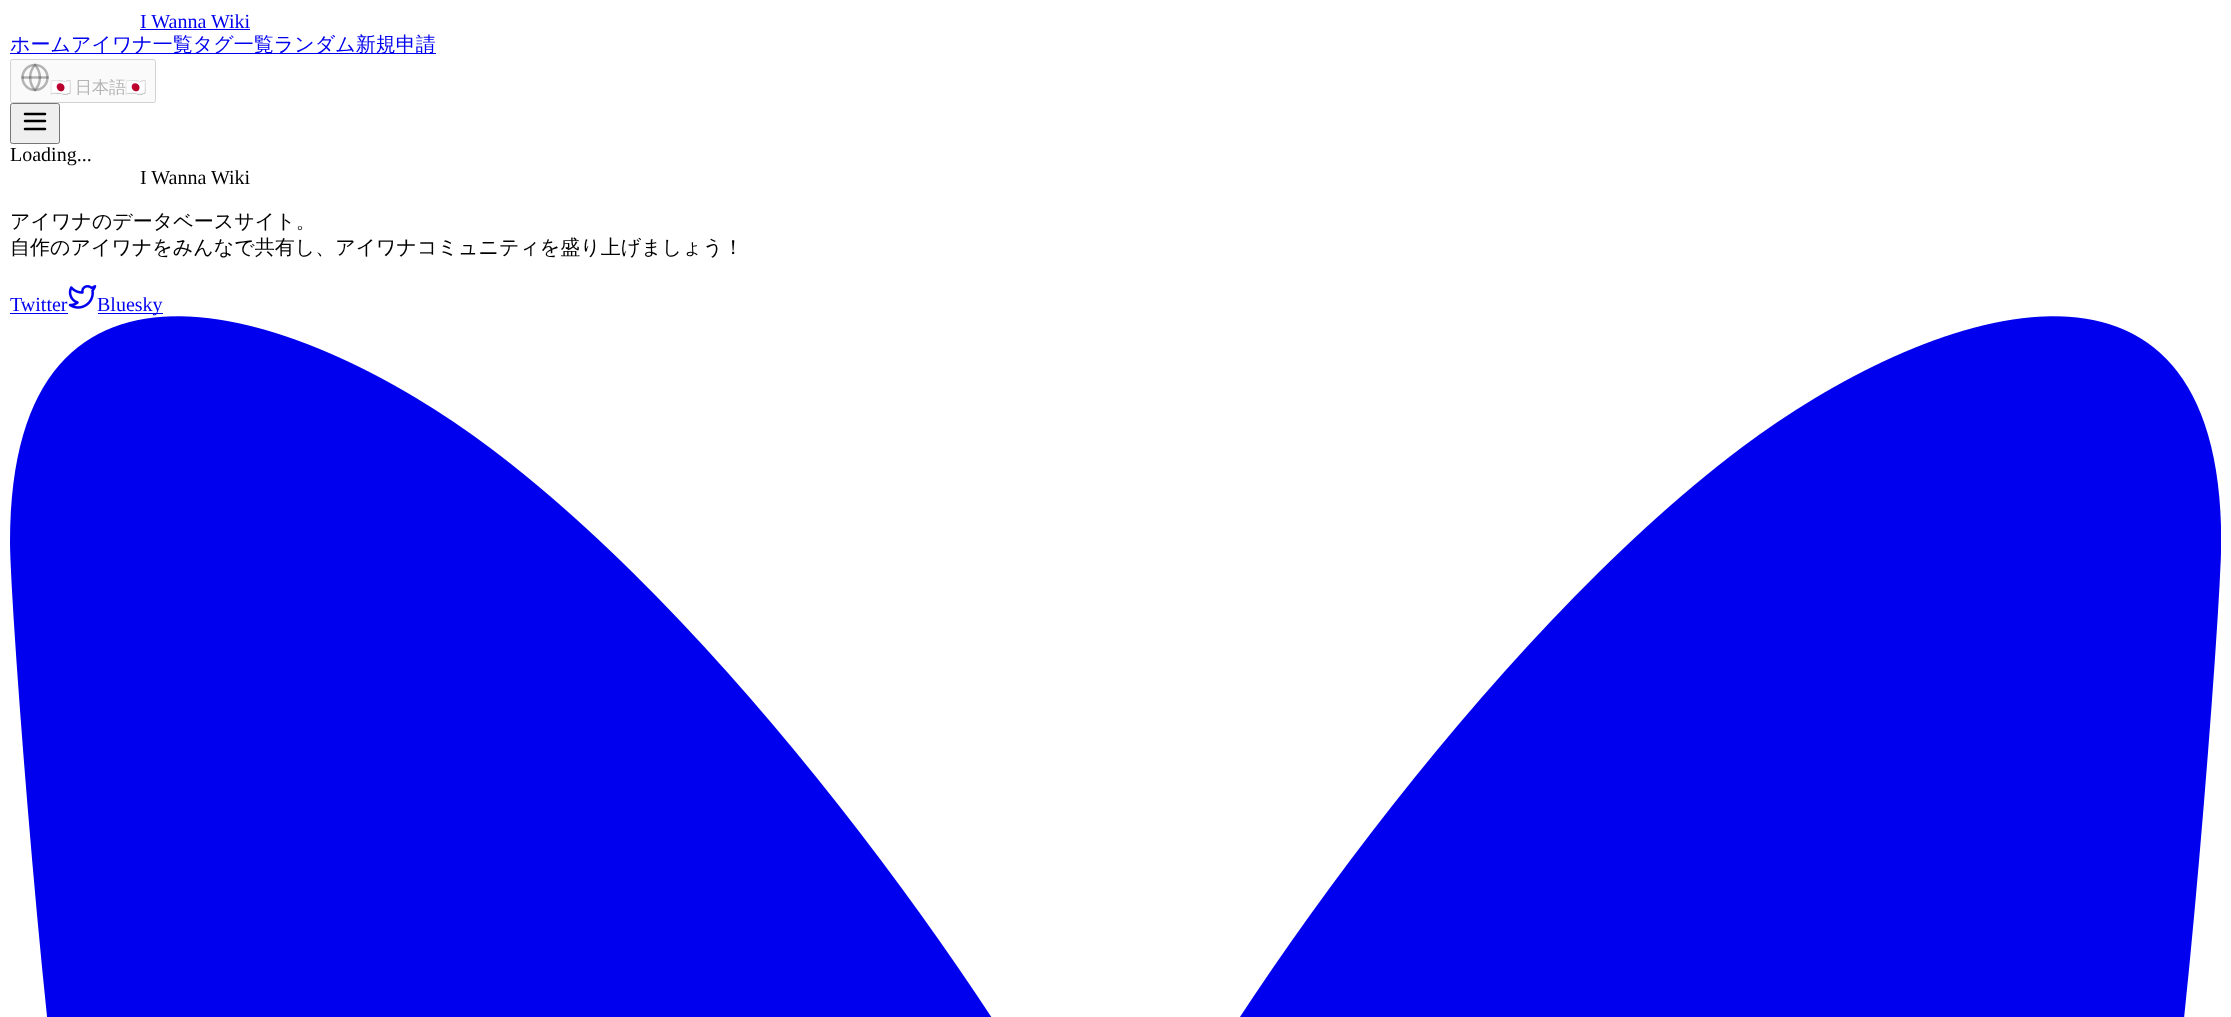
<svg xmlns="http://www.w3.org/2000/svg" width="2231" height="1017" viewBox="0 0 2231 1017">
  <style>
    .t1 { font: 20px Liberation Serif; fill: #00e; }
    .t2 { font: 500 20px WenQuanYi Zen Hei; fill: #00e; }
    .t3 { font: 17px Noto Color Emoji; fill: #b4b4b4; }
    .t4 { font: 500 17px WenQuanYi Zen Hei; fill: #b4b4b4; }
    .t5 { font: 20px Liberation Serif; fill: #000; }
    .t6 { font: 500 20px WenQuanYi Zen Hei; fill: #000; }
  </style>
  <rect width="100%" height="100%" fill="#fff"/>
  <text x="140" y="28" class="t1">I Wanna Wiki</text>
  <rect x="140" y="29" width="110" height="1" fill="#00e"/>
  <rect x="10" y="53" width="426" height="1" fill="#00e"/>
  <text x="10" y="51" class="t2">ホームアイワナ一覧タグ一覧ランダム新規申請</text>
  <rect x="10.5" y="59.5" width="145" height="43" rx="2" fill="#fafafa" stroke="#d2d2d2"/>
  <circle cx="35" cy="77.5" r="12.5" fill="none" stroke="#b4b4b4" stroke-width="2.5"/>
  <path d="M35 65C28.5 72 28.5 83 35 90C41.5 83 41.5 72 35 65" fill="none" stroke="#1010104d" stroke-width="2.5" stroke-linecap="round" stroke-linejoin="round"/>
  <path d="M22.5 77.5H47.5" fill="none" stroke="#1010104d" stroke-width="2.5" stroke-linecap="round" stroke-linejoin="round"/>
  <text x="50" y="93" class="t3">🇯🇵</text>
  <text x="75" y="93" class="t4">日本語</text>
  <text x="125" y="93" class="t3">🇯🇵</text>
  <rect x="10.5" y="103.5" width="49" height="40" rx="2" fill="#efefef" stroke="#767676"/>
  <path d="M25 121H45M25 114H45M25 129H45" fill="none" stroke="#000" stroke-width="2.5" stroke-linecap="round" stroke-linejoin="round"/>
  <text x="10" y="161" class="t5">Loading...</text>
  <text x="140" y="184" class="t5">I Wanna Wiki</text>
  <text x="10" y="228" class="t6">アイワナのデータベースサイト。</text>
  <text x="10" y="254" class="t6">自作のアイワナをみんなで共有し、アイワナコミュニティを盛り上げましょう！</text>
  <text x="10" y="311" class="t1">Twitter</text>
  <rect x="10" y="313" width="58" height="1" fill="#00e"/>
  <image x="68" y="285" width="29" height="24" href="images/1.png"/>
  <rect x="98" y="313" width="65" height="1" fill="#00e"/>
  <text x="97" y="311" class="t1">Bluesky</text>
  <image x="10" y="316" width="2211" height="701" href="images/2.png"/>
</svg>
